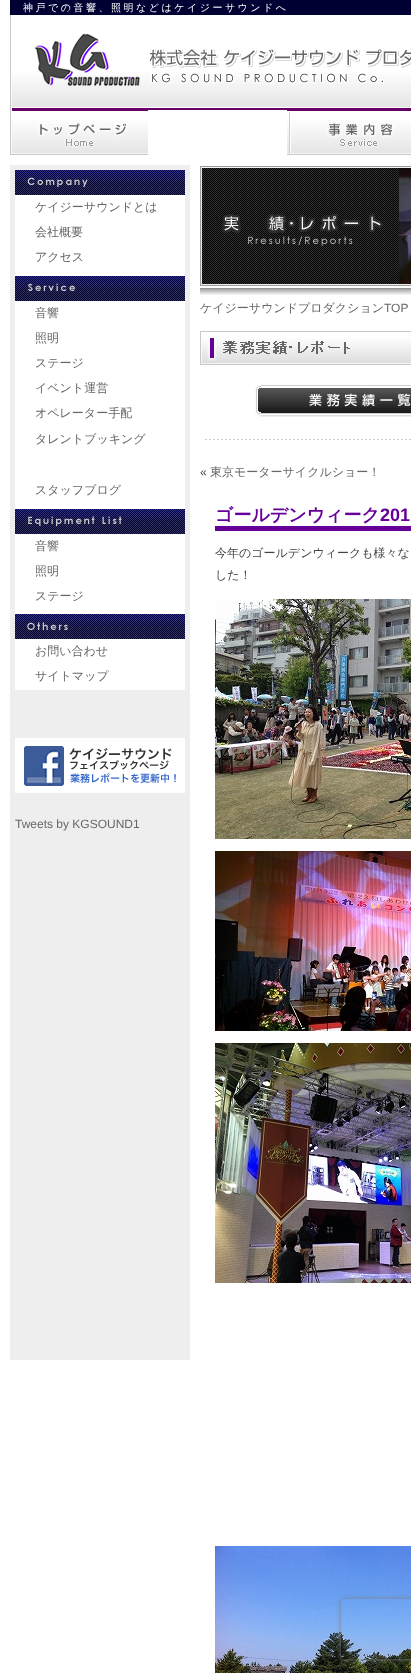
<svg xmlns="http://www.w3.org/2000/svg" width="411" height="1673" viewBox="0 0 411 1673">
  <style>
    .t1 { font: 500 10px WenQuanYi Zen Hei; letter-spacing: 2.5px; fill: #fff; }
    .t2 { font: 500 12px WenQuanYi Zen Hei; fill: #666; }
    .t3 { font: 12px Liberation Sans; fill: #666; }
    .t4 { font: 12px Liberation Sans; fill: #444; }
    .t5 { font: bold 18px WenQuanYi Zen Hei; fill: #609; }
    .t6 { font: bold 18px Liberation Sans; fill: #609; }
    .t7 { font: 500 12px WenQuanYi Zen Hei; fill: #444; }
  </style>
  <defs>
    <clipPath id="clip1"><path d="M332 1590H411V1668H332ZM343 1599H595C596 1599 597 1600 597 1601V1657C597 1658 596 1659 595 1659H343C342 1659 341 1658 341 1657V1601C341 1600 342 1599 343 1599Z" clip-rule="evenodd"/></clipPath>
  </defs>
  <rect width="100%" height="100%" fill="#fff"/>
  <rect x="10" y="0" width="401" height="15" fill="#003"/>
  <text x="23" y="11" class="t1">神戸での音響、照明などはケイジーサウンドへ</text>
  <image x="10" y="15" width="401" height="95" href="images/1.png"/>
  <image x="10" y="110" width="138" height="45" href="images/2.png"/>
  <image x="287" y="110" width="124" height="45" href="images/3.png"/>
  <rect x="10" y="165" width="180" height="1195" fill="#eee"/>
  <rect x="15" y="195" width="170" height="495" fill="#fff"/>
  <image x="15" y="170" width="170" height="25" href="images/4.png"/>
  <text x="35" y="211" class="t2">ケイジーサウンドとは</text>
  <text x="35" y="236" class="t2">会社概要</text>
  <text x="35" y="261" class="t2">アクセス</text>
  <image x="15" y="276" width="170" height="25" href="images/5.png"/>
  <text x="35" y="317" class="t2">音響</text>
  <text x="35" y="342" class="t2">照明</text>
  <text x="35" y="367" class="t2">ステージ</text>
  <text x="35" y="392" class="t2">イベント運営</text>
  <text x="35" y="417" class="t2">オペレーター手配</text>
  <text x="35" y="443" class="t2">タレントブッキング</text>
  <text x="35" y="494" class="t2">スタッフブログ</text>
  <image x="15" y="509" width="170" height="25" href="images/6.png"/>
  <text x="35" y="550" class="t2">音響</text>
  <text x="35" y="575" class="t2">照明</text>
  <text x="35" y="600" class="t2">ステージ</text>
  <image x="15" y="614" width="170" height="25" href="images/7.png"/>
  <text x="35" y="655" class="t2">お問い合わせ</text>
  <text x="35" y="680" class="t2">サイトマップ</text>
  <image x="15" y="738" width="170" height="55" href="images/8.png"/>
  <text x="15" y="828" class="t3">Tweets by KGSOUND1</text>
  <image x="200" y="165" width="211" height="130" href="images/9.png"/>
  <text x="200" y="312" class="t2">ケイジーサウンドプロダクション</text>
  <text x="384" y="312" class="t3">TOP</text>
  <image x="200" y="331" width="211" height="34" href="images/10.png"/>
  <image x="255" y="383" width="156" height="34" href="images/11.png"/>
  <image x="205" y="439" width="206" height="1" href="images/12.png"/>
  <text x="200" y="476" class="t4">«</text>
  <text x="210" y="476" class="t2">東京モーターサイクルショー！</text>
  <text x="215" y="521" class="t5">ゴールデンウィーク</text>
  <text x="380" y="521" class="t6">201</text>
  <rect x="215" y="526" width="196" height="5" fill="#609"/>
  <text x="215" y="557" class="t7">今年のゴールデンウィークも様々な</text>
  <text x="215" y="579" class="t7">した！</text>
  <image x="215" y="599" width="196" height="240" href="images/13.png"/>
  <image x="215" y="851" width="196" height="180" href="images/14.png"/>
  <image x="215" y="1043" width="196" height="240" href="images/15.png"/>
  <image x="215" y="1546" width="196" height="127" href="images/16.png"/>
  <g clip-path="url(#clip1)">
    <rect x="341" y="1599" width="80" height="60" rx="2" fill="#808080" filter="blur(2.5px)"/>
  </g>
</svg>
